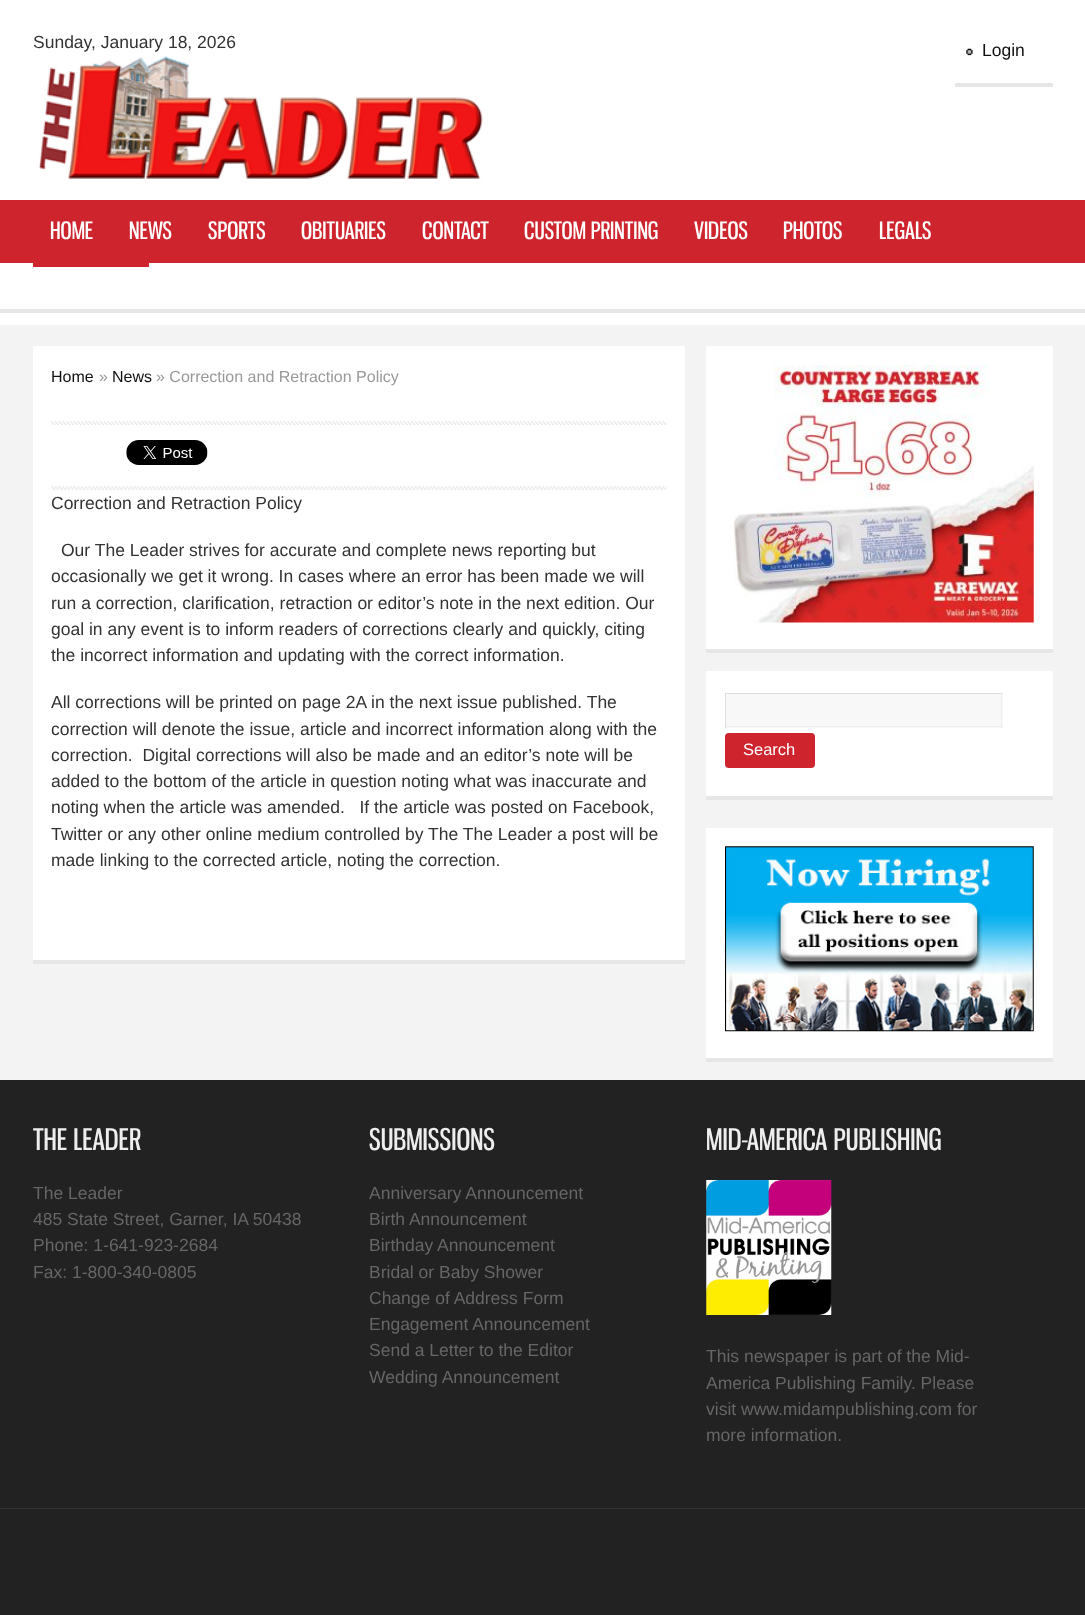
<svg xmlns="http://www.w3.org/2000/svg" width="1085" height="1615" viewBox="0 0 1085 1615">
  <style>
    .t1 { font: 17.5px Liberation Sans; fill: #333; }
    .t2 { font: 17.5px Liberation Sans; fill: #111; }
    .t3 { font: 23.5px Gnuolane; fill: #fff; }
    .t4 { font: 16px Liberation Sans; fill: #111; }
    .t5 { font: 16px Liberation Sans; fill: #999; }
    .t6 { font: 16.5px Liberation Sans; fill: #fff; }
    .t7 { font: 29.25px Gnuolane; fill: #eee; }
    .t8 { font: 17.5px Liberation Sans; fill: #666; }
  </style>
  <rect width="100%" height="100%" fill="#f3f3f3"/>
  <rect x="0" y="0" width="1085" height="325" fill="#fff"/>
  <text x="33" y="48" class="t1">Sunday, January 18, 2026</text>
  <image x="38" y="56" width="445" height="123" href="images/1.png"/>
  <rect x="955" y="83" width="98" height="4" fill="#e6e6e6"/>
  <image x="966" y="48" width="7" height="8" href="images/2.png"/>
  <text x="982" y="56" class="t2">Login</text>
  <rect x="0" y="200" width="1085" height="63" fill="#ce242e"/>
  <rect x="0" y="309" width="1085" height="4" fill="#e6e6e6"/>
  <text x="50" y="239" class="t3">HOME</text>
  <text x="129" y="239" class="t3">NEWS</text>
  <text x="208" y="239" class="t3">SPORTS</text>
  <text x="301" y="239" class="t3">OBITUARIES</text>
  <text x="422" y="239" class="t3">CONTACT</text>
  <text x="524" y="239" class="t3">CUSTOM PRINTING</text>
  <text x="694" y="239" class="t3">VIDEOS</text>
  <text x="783" y="239" class="t3">PHOTOS</text>
  <text x="879" y="239" class="t3">LEGALS</text>
  <rect x="33" y="263" width="116" height="4" fill="#ce242e"/>
  <rect x="33" y="346" width="652" height="614" fill="#fff"/>
  <rect x="33" y="960" width="652" height="4" fill="#e6e6e6"/>
  <text x="51" y="382" class="t4">Home</text>
  <text x="99" y="382" class="t5">»</text>
  <text x="112" y="382" class="t4">News</text>
  <text x="156" y="382" class="t5">» Correction and Retraction Policy</text>
  <image x="51" y="421" width="616" height="4" href="images/3.png"/>
  <image x="51" y="486" width="616" height="4" href="images/4.png"/>
  <image x="126" y="440" width="82" height="25" href="images/5.png"/>
  <text x="51" y="509" class="t1">Correction and Retraction Policy</text>
  <text x="61" y="556" class="t1">Our The Leader strives for accurate and complete news reporting but</text>
  <text x="51" y="582" class="t1">occasionally we get it wrong. In cases where an error has been made we will</text>
  <text x="51" y="609" class="t1">run a correction, clarification, retraction or editor’s note in the next edition. Our</text>
  <text x="51" y="635" class="t1">goal in any event is to inform readers of corrections clearly and quickly, citing</text>
  <text x="51" y="661" class="t1">the incorrect information and updating with the correct information.</text>
  <text x="51" y="708" class="t1">All corrections will be printed on page 2A in the next issue published. The</text>
  <text x="51" y="735" class="t1">correction will denote the issue, article and incorrect information along with the</text>
  <text x="51" y="761" class="t1" xml:space="preserve">correction.  Digital corrections will also be made and an editor’s note will be</text>
  <text x="51" y="787" class="t1">added to the bottom of the article in question noting what was inaccurate and</text>
  <text x="51" y="813" class="t1" xml:space="preserve">noting when the article was amended.   If the article was posted on Facebook,</text>
  <text x="51" y="840" class="t1">Twitter or any other online medium controlled by The The Leader a post will be</text>
  <text x="51" y="866" class="t1">made linking to the corrected article, noting the correction.</text>
  <rect x="706" y="346" width="347" height="303" fill="#fff"/>
  <rect x="706" y="649" width="347" height="4" fill="#e6e6e6"/>
  <image x="733" y="365" width="301" height="258" href="images/6.png"/>
  <rect x="706" y="671" width="347" height="125" fill="#fff"/>
  <rect x="706" y="796" width="347" height="4" fill="#e6e6e6"/>
  <rect x="726" y="694" width="277" height="34" fill="#f8f8f8"/>
  <rect x="725" y="693" width="278" height="1" fill="#ddd"/>
  <rect x="1001" y="693" width="1" height="35" fill="#eee"/>
  <rect x="725" y="726" width="278" height="1" fill="#eee"/>
  <rect x="725" y="693" width="1" height="35" fill="#ddd"/>
  <rect x="725" y="733" width="90" height="35" rx="4" fill="#ce242e"/>
  <text x="743" y="755" class="t6">Search</text>
  <rect x="706" y="828" width="347" height="230" fill="#fff"/>
  <rect x="706" y="1058" width="347" height="4" fill="#e6e6e6"/>
  <image x="725" y="846" width="309" height="186" href="images/7.png"/>
  <rect x="0" y="1080" width="1085" height="428" fill="#222"/>
  <text x="33" y="1150" class="t7">THE LEADER</text>
  <text x="33" y="1199" class="t8">The Leader</text>
  <text x="33" y="1225" class="t8">485 State Street, Garner, IA 50438</text>
  <text x="33" y="1251" class="t8">Phone: 1-641-923-2684</text>
  <text x="33" y="1278" class="t8">Fax: 1-800-340-0805</text>
  <text x="369" y="1150" class="t7">SUBMISSIONS</text>
  <text x="369" y="1199" class="t8">Anniversary Announcement</text>
  <text x="369" y="1225" class="t8">Birth Announcement</text>
  <text x="369" y="1251" class="t8">Birthday Announcement</text>
  <text x="369" y="1278" class="t8">Bridal or Baby Shower</text>
  <text x="369" y="1304" class="t8">Change of Address Form</text>
  <text x="369" y="1330" class="t8">Engagement Announcement</text>
  <text x="369" y="1356" class="t8">Send a Letter to the Editor</text>
  <text x="369" y="1383" class="t8">Wedding Announcement</text>
  <text x="706" y="1150" class="t7">MID-AMERICA PUBLISHING</text>
  <image x="706" y="1180" width="126" height="135" href="images/8.png"/>
  <text x="706" y="1362" class="t8">This newspaper is part of the Mid-</text>
  <text x="706" y="1389" class="t8">America Publishing Family. Please</text>
  <text x="706" y="1415" class="t8">visit www.midampublishing.com for</text>
  <text x="706" y="1441" class="t8">more information.</text>
  <rect x="0" y="1509" width="1085" height="106" fill="#222"/>
  <rect x="0" y="1508" width="1085" height="1" fill="#333"/>
</svg>
